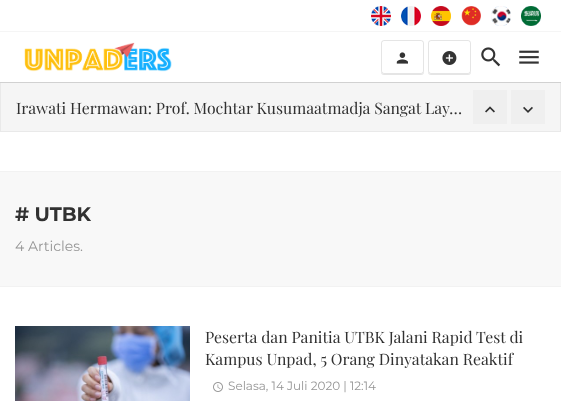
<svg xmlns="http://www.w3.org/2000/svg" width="561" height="401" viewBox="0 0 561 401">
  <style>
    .t1 { font: 15.75px Playfair Display; fill: #313131; }
    .t2 { font: bold 19.5px Montserrat; fill: #313131; }
    .t3 { font: 14px Montserrat; fill: #959595; }
    .t4 { font: 12px Montserrat; fill: #959595; }
  </style>
  <rect width="100%" height="100%" fill="#fff"/>
  <image x="371" y="6" width="20" height="20" href="images/1.png"/>
  <image x="401" y="6" width="20" height="20" href="images/2.png"/>
  <image x="431" y="6" width="20" height="20" href="images/3.png"/>
  <image x="461" y="6" width="20" height="20" href="images/4.png"/>
  <image x="491" y="6" width="20" height="20" href="images/5.png"/>
  <image x="521" y="6" width="20" height="20" href="images/6.png"/>
  <rect x="0" y="31" width="561" height="1" fill="#f5f5f5"/>
  <rect x="0.5" y="82.5" width="560" height="49" fill="#f5f5f5" stroke="#e9e9e9"/>
  <rect x="0" y="82" width="561" height="1" fill="#d1d1d1"/>
  <image x="24" y="42" width="148" height="30" href="images/7.png"/>
  <rect x="381" y="41" width="43" height="34" rx="3" fill="#0000001a" filter="blur(0.5px)"/>
  <rect x="381" y="40" width="43" height="34" rx="3" fill="#fff"/>
  <rect x="381.5" y="40.5" width="42" height="33" rx="2.5" fill="none" stroke="#0000001a"/>
  <image x="396" y="52" width="12" height="12" href="images/8.png"/>
  <rect x="428" y="41" width="43" height="34" rx="3" fill="#0000001a" filter="blur(0.5px)"/>
  <rect x="428" y="40" width="43" height="34" rx="3" fill="#fff"/>
  <rect x="428.5" y="40.5" width="42" height="33" rx="2.5" fill="none" stroke="#0000001a"/>
  <image x="442" y="51" width="15" height="14" href="images/9.png"/>
  <image x="481" y="47" width="20" height="20" href="images/10.png"/>
  <image x="519" y="50" width="20" height="14" href="images/11.png"/>
  <text x="16" y="114" class="t1">Irawati Hermawan: Prof. Mochtar Kusumaatmadja Sangat Lay…</text>
  <rect x="473" y="90" width="34" height="34" fill="#efefef"/>
  <image x="485" y="106" width="10" height="7" href="images/12.png"/>
  <rect x="511" y="90" width="34" height="34" fill="#efefef"/>
  <image x="523" y="106" width="10" height="7" href="images/13.png"/>
  <rect x="-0.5" y="171.5" width="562" height="115" fill="none" stroke="#f2f2f2"/>
  <rect x="0" y="172" width="561" height="114" fill="#f8f8f8"/>
  <text x="15" y="221" class="t2"># UTBK</text>
  <text x="15" y="251" class="t3">4 Articles.</text>
  <image x="15" y="326" width="175" height="75" href="images/14.png"/>
  <text x="205" y="343" class="t1">Peserta dan Panitia UTBK Jalani Rapid Test di</text>
  <text x="205" y="365" class="t1">Kampus Unpad, 5 Orang Dinyatakan Reaktif</text>
  <image x="213" y="382" width="10" height="10" href="images/15.png"/>
  <text x="228" y="390" class="t4">Selasa, 14 Juli 2020 | 12:14</text>
</svg>
